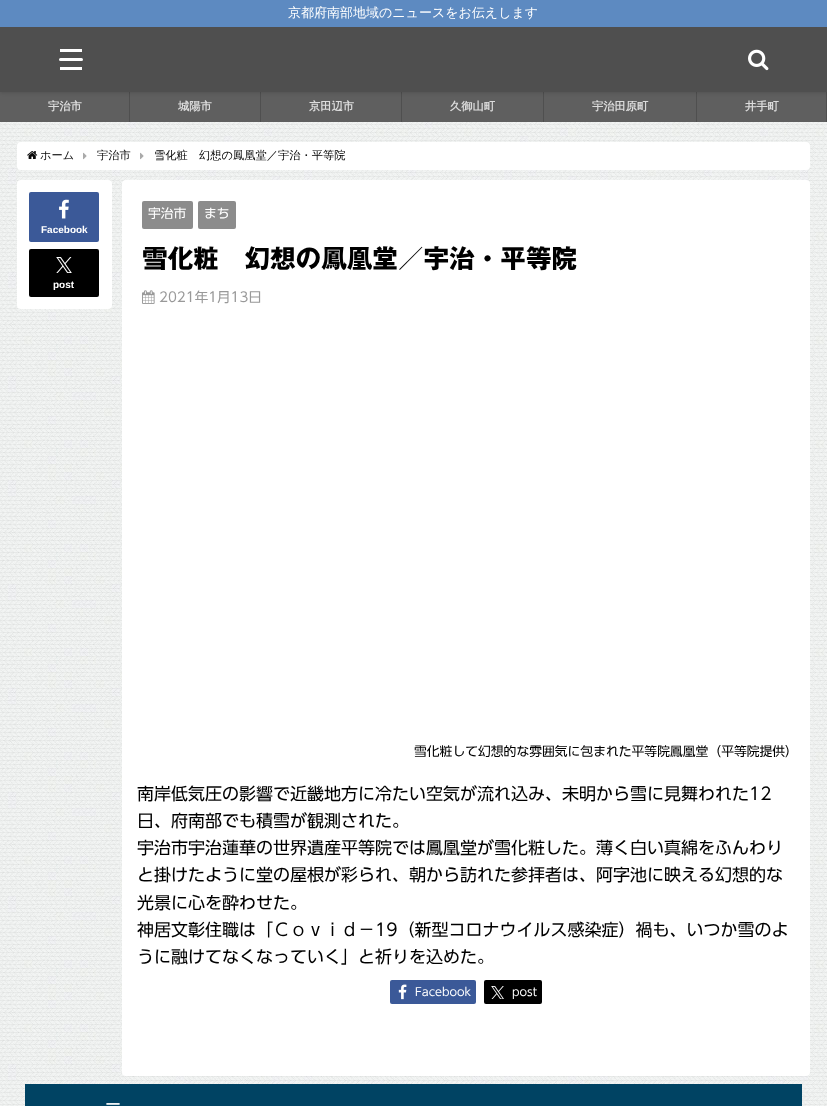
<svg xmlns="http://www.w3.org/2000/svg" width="827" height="1106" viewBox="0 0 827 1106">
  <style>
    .t1 { font: 500 13px WenQuanYi Zen Hei; fill: #fff; }
    .t2 { font: bold 11.25px WenQuanYi Zen Hei; fill: #dcdcdc; }
    .t3 { font: 500 11.25px WenQuanYi Zen Hei; fill: #0a0a0a; }
    .t4 { font: 500 11.25px WenQuanYi Zen Hei; fill: #000; }
    .t5 { font: bold 10px Liberation Sans; fill: #fff; }
    .t6 { font: 12.8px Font; fill: #fff; }
    .t7 { font: bold 25.6px Font; fill: #000; }
    .t8 { font: 13.5px Font; fill: #999; }
    .t9 { font: 12.8px Font; fill: #000; }
    .t10 { font: 17px Font; fill: #000; }
    .t11 { font: 11.25px Font; fill: #fff; }
    .t12 { font: 500 16px WenQuanYi Zen Hei; fill: #fff; }
  </style>
  <rect width="100%" height="100%" fill="#fff"/>
  <image x="0" y="122" width="827" height="984" href="images/1.png"/>
  <rect x="129" y="92" width="698" height="30" fill="#4f4f4f"/>
  <rect x="0" y="92" width="129" height="30" fill="#5f5f5f"/>
  <rect x="130" y="92" width="130" height="30" fill="#5f5f5f"/>
  <rect x="261" y="92" width="140" height="30" fill="#5f5f5f"/>
  <rect x="402" y="92" width="141" height="30" fill="#5f5f5f"/>
  <rect x="544" y="92" width="152" height="30" fill="#5f5f5f"/>
  <rect x="697" y="92" width="129" height="30" fill="#5f5f5f"/>
  <rect x="0" y="0" width="827" height="92" fill="#00000033" filter="blur(2px)"/>
  <rect x="0" y="27" width="827" height="65" fill="#4f4f4f"/>
  <rect x="0" y="0" width="827" height="27" fill="#5d8ac1"/>
  <text x="288" y="17" class="t1">京都府南部地域のニュースをお伝えします</text>
  <rect x="60" y="49" width="22" height="3" fill="#fff"/>
  <rect x="59" y="58" width="24" height="3" rx="1.5" fill="#fff"/>
  <rect x="60" y="67" width="22" height="3" fill="#fff"/>
  <image x="748" y="49" width="21" height="22" href="images/2.png"/>
  <text x="48" y="110" class="t2">宇治市</text>
  <text x="178" y="110" class="t2">城陽市</text>
  <text x="309" y="110" class="t2">京田辺市</text>
  <text x="450" y="110" class="t2">久御山町</text>
  <text x="592" y="110" class="t2">宇治田原町</text>
  <text x="745" y="110" class="t2">井手町</text>
  <rect x="17" y="142" width="793" height="28" rx="4" fill="#fff"/>
  <image x="27" y="151" width="11" height="8" href="images/3.png"/>
  <text x="40" y="159" class="t3">ホーム</text>
  <image x="83" y="152" width="4" height="8" href="images/4.png"/>
  <text x="97" y="159" class="t3">宇治市</text>
  <image x="140" y="152" width="4" height="8" href="images/4.png"/>
  <text x="154" y="159" class="t4">雪化粧　幻想の鳳凰堂／宇治・平等院</text>
  <rect x="17" y="180" width="95" height="129" rx="4" fill="#fff"/>
  <rect x="29" y="192" width="70" height="50" rx="2" fill="#3b5998"/>
  <image x="59" y="199" width="10" height="20" href="images/5.png"/>
  <text x="41" y="233" class="t5">Facebook</text>
  <rect x="29" y="249" width="70" height="48" rx="2" fill="#000"/>
  <image x="56" y="257" width="16" height="16" href="images/6.png"/>
  <text x="53" y="288" class="t5">post</text>
  <rect x="122" y="180" width="688" height="896" rx="4" fill="#fff"/>
  <rect x="142" y="201" width="51" height="28" rx="2" fill="#8c8c8c"/>
  <text x="148" y="218" class="t6">宇治市</text>
  <rect x="198" y="201" width="38" height="28" rx="2" fill="#8c8c8c"/>
  <text x="204" y="218" class="t6">まち</text>
  <text x="142" y="268" class="t7">雪化粧　幻想の鳳凰堂／宇治・平等院</text>
  <image x="142" y="290" width="13" height="14" href="images/7.png"/>
  <text x="159" y="302" class="t8">2021年1月13日</text>
  <text x="414" y="756" class="t9">雪化粧して幻想的な雰囲気に包まれた平等院鳳凰堂（平等院提供）</text>
  <text x="137" y="800" class="t10">南岸低気圧の影響で近畿地方に冷たい空気が流れ込み、未明から雪に見舞われた12</text>
  <text x="137" y="827" class="t10">日、府南部でも積雪が観測された。</text>
  <text x="137" y="854" class="t10">宇治市宇治蓮華の世界遺産平等院では鳳凰堂が雪化粧した。薄く白い真綿をふんわり</text>
  <text x="137" y="881" class="t10">と掛けたように堂の屋根が彩られ、朝から訪れた参拝者は、阿字池に映える幻想的な</text>
  <text x="137" y="909" class="t10">光景に心を酔わせた。</text>
  <text x="137" y="936" class="t10">神居文彰住職は「Ｃｏｖｉｄ－19（新型コロナウイルス感染症）禍も、いつか雪のよ</text>
  <text x="137" y="963" class="t10">うに融けてなくなっていく」と祈りを込めた。</text>
  <rect x="390" y="980" width="86" height="24" rx="2" fill="#3b5998"/>
  <image x="398" y="984" width="9" height="16" href="images/8.png"/>
  <text x="415" y="996" class="t11">Facebook</text>
  <rect x="484" y="980" width="58" height="24" rx="2" fill="#000"/>
  <image x="491" y="986" width="13" height="13" href="images/9.png"/>
  <text x="512" y="996" class="t11">post</text>
  <rect x="25" y="1084" width="777" height="22" fill="#004363"/>
  <text x="105" y="1110" class="t12">ー</text>
</svg>
